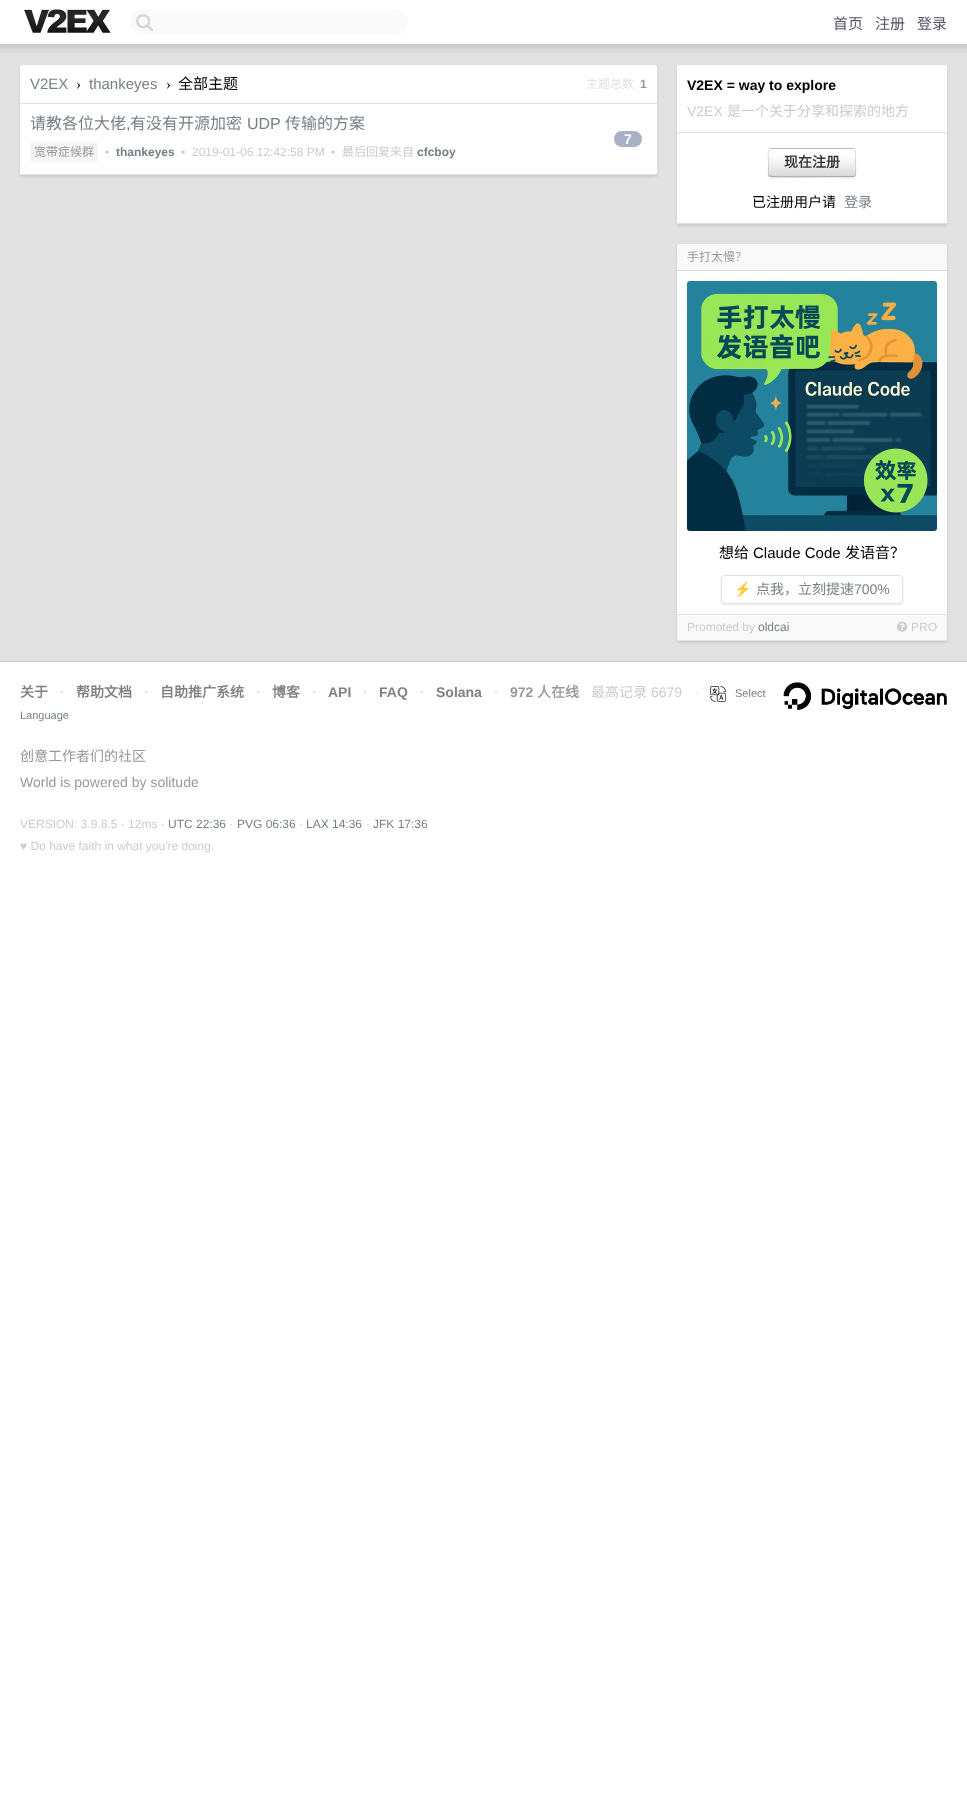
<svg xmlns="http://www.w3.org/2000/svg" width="967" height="1795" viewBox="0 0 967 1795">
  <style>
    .t1 { font: 15px Noto Sans CJK SC; fill: #556; }
    .t2 { font: 15px Liberation Sans; fill: #778087; }
    .t3 { font: 15px Liberation Serif; fill: #000; }
    .t4 { font: 15px Noto Sans CJK SC; fill: #000; }
    .t5 { font: 12px Noto Sans CJK SC; fill: #e2e2e2; }
    .t6 { font: bold 12px Liberation Sans; fill: #999; }
    .t7 { font: 16px Noto Sans CJK SC; fill: #778087; }
    .t8 { font: 16px Liberation Sans; fill: #778087; }
    .t9 { font: 12px Noto Sans CJK SC; fill: #999; }
    .t10 { font: 12px Liberation Sans; fill: #ccc; }
    .t11 { font: bold 12px Liberation Sans; fill: #778087; }
    .t12 { font: 12px Noto Sans CJK SC; fill: #ccc; }
    .t13 { font: bold 14px Liberation Sans; fill: #fff; }
    .t14 { font: bold 14px Liberation Sans; fill: #000; }
    .t15 { font: 14px Liberation Sans; fill: #ccc; }
    .t16 { font: 14px Noto Sans CJK SC; fill: #ccc; }
    .t17 { font: bold 14px Noto Sans CJK SC; fill: #333; }
    .t18 { font: 14px Noto Sans CJK SC; fill: #000; }
    .t19 { font: 14px Noto Sans CJK SC; fill: #778087; }
    .t20 { font: 15px Liberation Sans; fill: #000; }
    .t21 { font: 14px Noto Color Emoji; fill: #778087; }
    .t22 { font: 14px Liberation Sans; fill: #778087; }
    .t23 { font: 12px Liberation Sans; fill: #778087; }
    .t24 { font: bold 14px Noto Sans CJK SC; fill: #808080; }
    .t25 { font: bold 14px Liberation Sans; fill: #e2e2e2; }
    .t26 { font: bold 14px Liberation Sans; fill: #808080; }
    .t27 { font: bold 14px Liberation Sans; fill: #999; }
    .t28 { font: bold 14px Noto Sans CJK SC; fill: #999; }
    .t29 { font: 14px Liberation Sans; fill: #e2e2e2; }
    .t30 { font: 11px Liberation Sans; fill: #778087; }
    .t31 { font: 14px Noto Sans CJK SC; fill: #999; }
    .t32 { font: 14px Liberation Sans; fill: #999; }
  </style>
  <rect width="100%" height="100%" fill="#fff"/>
  <rect x="0" y="44" width="967" height="1" fill="#c7c7c7"/>
  <image x="24" y="9" width="87" height="24" href="images/1.png"/>
  <rect x="130" y="9" width="278" height="26" rx="13" fill="#fafafa"/>
  <image x="136" y="14" width="17" height="17" href="images/2.png"/>
  <text x="833" y="29" class="t1">首页</text>
  <text x="875" y="29" class="t1">注册</text>
  <text x="917" y="29" class="t1">登录</text>
  <rect x="0" y="45" width="967" height="616" fill="#e2e2e2"/>
  <image x="0" y="45" width="967" height="8" href="images/3.png"/>
  <rect x="20" y="67" width="637" height="110" rx="3" fill="#0000001a" filter="blur(1.5px)"/>
  <rect x="20" y="65" width="637" height="110" rx="3" fill="#fff"/>
  <rect x="22" y="174" width="634" height="1" fill="#e2e2e2"/>
  <rect x="20" y="103" width="637" height="1" fill="#e2e2e2"/>
  <text x="30" y="89" class="t2">V2EX</text>
  <text x="76" y="89" class="t3">›</text>
  <text x="89" y="89" class="t2">thankeyes</text>
  <text x="166" y="89" class="t3">›</text>
  <text x="178" y="89" class="t4">全部主题</text>
  <text x="586" y="88" class="t5">主题总数</text>
  <text x="640" y="88" class="t6">1</text>
  <text x="30" y="129" class="t7">请教各位大佬</text>
  <text x="126" y="129" class="t8">,</text>
  <text x="130" y="129" class="t7">有没有开源加密</text>
  <text x="247" y="129" class="t8">UDP</text>
  <text x="285" y="129" class="t7">传输的方案</text>
  <rect x="30" y="142" width="68" height="20" rx="2" fill="#f5f5f5"/>
  <text x="34" y="156" class="t9">宽带症候群</text>
  <text x="105" y="156" class="t10">•</text>
  <text x="116" y="156" class="t11">thankeyes</text>
  <text x="181" y="156" class="t10">•</text>
  <text x="192" y="156" class="t10">2019-01-06 12:42:58 PM</text>
  <text x="331" y="156" class="t10">•</text>
  <text x="342" y="156" class="t12">最后回复来自</text>
  <text x="417" y="156" class="t11">cfcboy</text>
  <rect x="614" y="131" width="28" height="16" rx="8" fill="#aab0c6"/>
  <text x="624" y="144" class="t13">7</text>
  <rect x="677" y="67" width="270" height="159" rx="3" fill="#0000001a" filter="blur(1.5px)"/>
  <rect x="677" y="65" width="270" height="159" rx="3" fill="#fff"/>
  <rect x="679" y="223" width="267" height="1" fill="#e2e2e2"/>
  <rect x="677" y="132" width="270" height="1" fill="#e2e2e2"/>
  <text x="687" y="90" class="t14">V2EX = way to explore</text>
  <text x="687" y="116" class="t15">V2EX</text>
  <text x="727" y="116" class="t16">是一个关于分享和探索的地方</text>
  <path d="M768 174C768 182 781 178 785 178H839C843 178 856 182 856 174C856 176 855 177 853 177H771C769 177 768 176 768 174Z" fill="#ececed"/>
  <rect x="768" y="148" width="88" height="29" rx="3" fill="#fff"/>
  <image x="768" y="148" width="88" height="29" href="images/4.png"/>
  <path d="M855 176L853 176.5H839.5C832 176.5 771.5 177.5 769.5 176H769" fill="none" stroke="#50505a59"/>
  <path d="M769 176C767.5 174 768.5 168.5 768.5 166.5C768.5 145.5 764 148.5 784.5 148.5H839.5C858 148.5 855.5 145 855.5 162.5C855.5 165 856.5 174 855 176" fill="none" stroke="#50505a33"/>
  <text x="784" y="167" class="t17">现在注册</text>
  <text x="752" y="207" class="t18">已注册用户请</text>
  <text x="844" y="207" class="t19">登录</text>
  <rect x="677" y="246" width="270" height="397" rx="3" fill="#0000001a" filter="blur(1.5px)"/>
  <rect x="677" y="244" width="270" height="397" rx="3" fill="#fff"/>
  <rect x="679" y="640" width="267" height="1" fill="#e2e2e2"/>
  <path d="M680 244H944C945.5 244 947 245.5 947 247V271H677V247C677 245.5 678.5 244 680 244Z" fill="#f9f9f9"/>
  <rect x="677" y="270" width="270" height="1" fill="#e2e2e2"/>
  <text x="687" y="261" class="t9">手打太慢？</text>
  <image x="687" y="281" width="250" height="250" href="images/5.png"/>
  <text x="719" y="558" class="t4">想给</text>
  <text x="753" y="558" class="t20">Claude Code</text>
  <text x="845" y="558" class="t4">发语音？</text>
  <rect x="677" y="614" width="270" height="1" fill="#e2e2e2"/>
  <rect x="721" y="576" width="182" height="29" rx="4" fill="#0000001a" filter="blur(1px)"/>
  <rect x="721.5" y="575.5" width="181" height="28" rx="3.5" fill="#fff" stroke="#e2e2e2"/>
  <text x="734" y="594" class="t21">⚡️</text>
  <text x="756" y="594" class="t19">点我，立刻提速</text>
  <text x="854" y="594" class="t22">700%</text>
  <path d="M677 615H947V637C947 638.5 945.5 640 944 640H680C678.5 640 677 638.5 677 637Z" fill="#f9f9f9"/>
  <text x="687" y="631" class="t10">Promoted by</text>
  <text x="758" y="631" class="t23">oldcai</text>
  <image x="897" y="621" width="11" height="11" href="images/6.png"/>
  <text x="911" y="631" class="t10">PRO</text>
  <rect x="0" y="661" width="967" height="1" fill="#c7c7c7"/>
  <text x="20" y="697" class="t24">关于</text>
  <text x="60" y="697" class="t25">·</text>
  <text x="76" y="697" class="t24">帮助文档</text>
  <text x="144" y="697" class="t25">·</text>
  <text x="160" y="697" class="t24">自助推广系统</text>
  <text x="256" y="697" class="t25">·</text>
  <text x="272" y="697" class="t24">博客</text>
  <text x="312" y="697" class="t25">·</text>
  <text x="328" y="697" class="t26">API</text>
  <text x="363" y="697" class="t25">·</text>
  <text x="379" y="697" class="t26">FAQ</text>
  <text x="420" y="697" class="t25">·</text>
  <text x="436" y="697" class="t26">Solana</text>
  <text x="494" y="697" class="t25">·</text>
  <text x="510" y="697" class="t27">972</text>
  <text x="537" y="697" class="t28">人在线</text>
  <text x="591" y="697" class="t16">最高记录</text>
  <text x="651" y="697" class="t15">6679</text>
  <text x="694" y="697" class="t29">·</text>
  <image x="710" y="686" width="16" height="16" href="images/7.png"/>
  <text x="735" y="697" class="t30">Select</text>
  <image x="783" y="682" width="164" height="28" href="images/8.png"/>
  <text x="20" y="719" class="t30">Language</text>
  <text x="20" y="761" class="t31">创意工作者们的社区</text>
  <text x="20" y="787" class="t32">World is powered by solitude</text>
  <text x="20" y="828" class="t10">VERSION: 3.9.8.5 · 12ms ·</text>
  <text x="168" y="828" class="t23">UTC 22:36</text>
  <text x="229" y="828" class="t10">·</text>
  <text x="237" y="828" class="t23">PVG 06:36</text>
  <text x="299" y="828" class="t10">·</text>
  <text x="306" y="828" class="t23">LAX 14:36</text>
  <text x="366" y="828" class="t10">·</text>
  <text x="373" y="828" class="t23">JFK 17:36</text>
  <text x="20" y="850" class="t10">♥ Do have faith in what you're doing.</text>
</svg>
